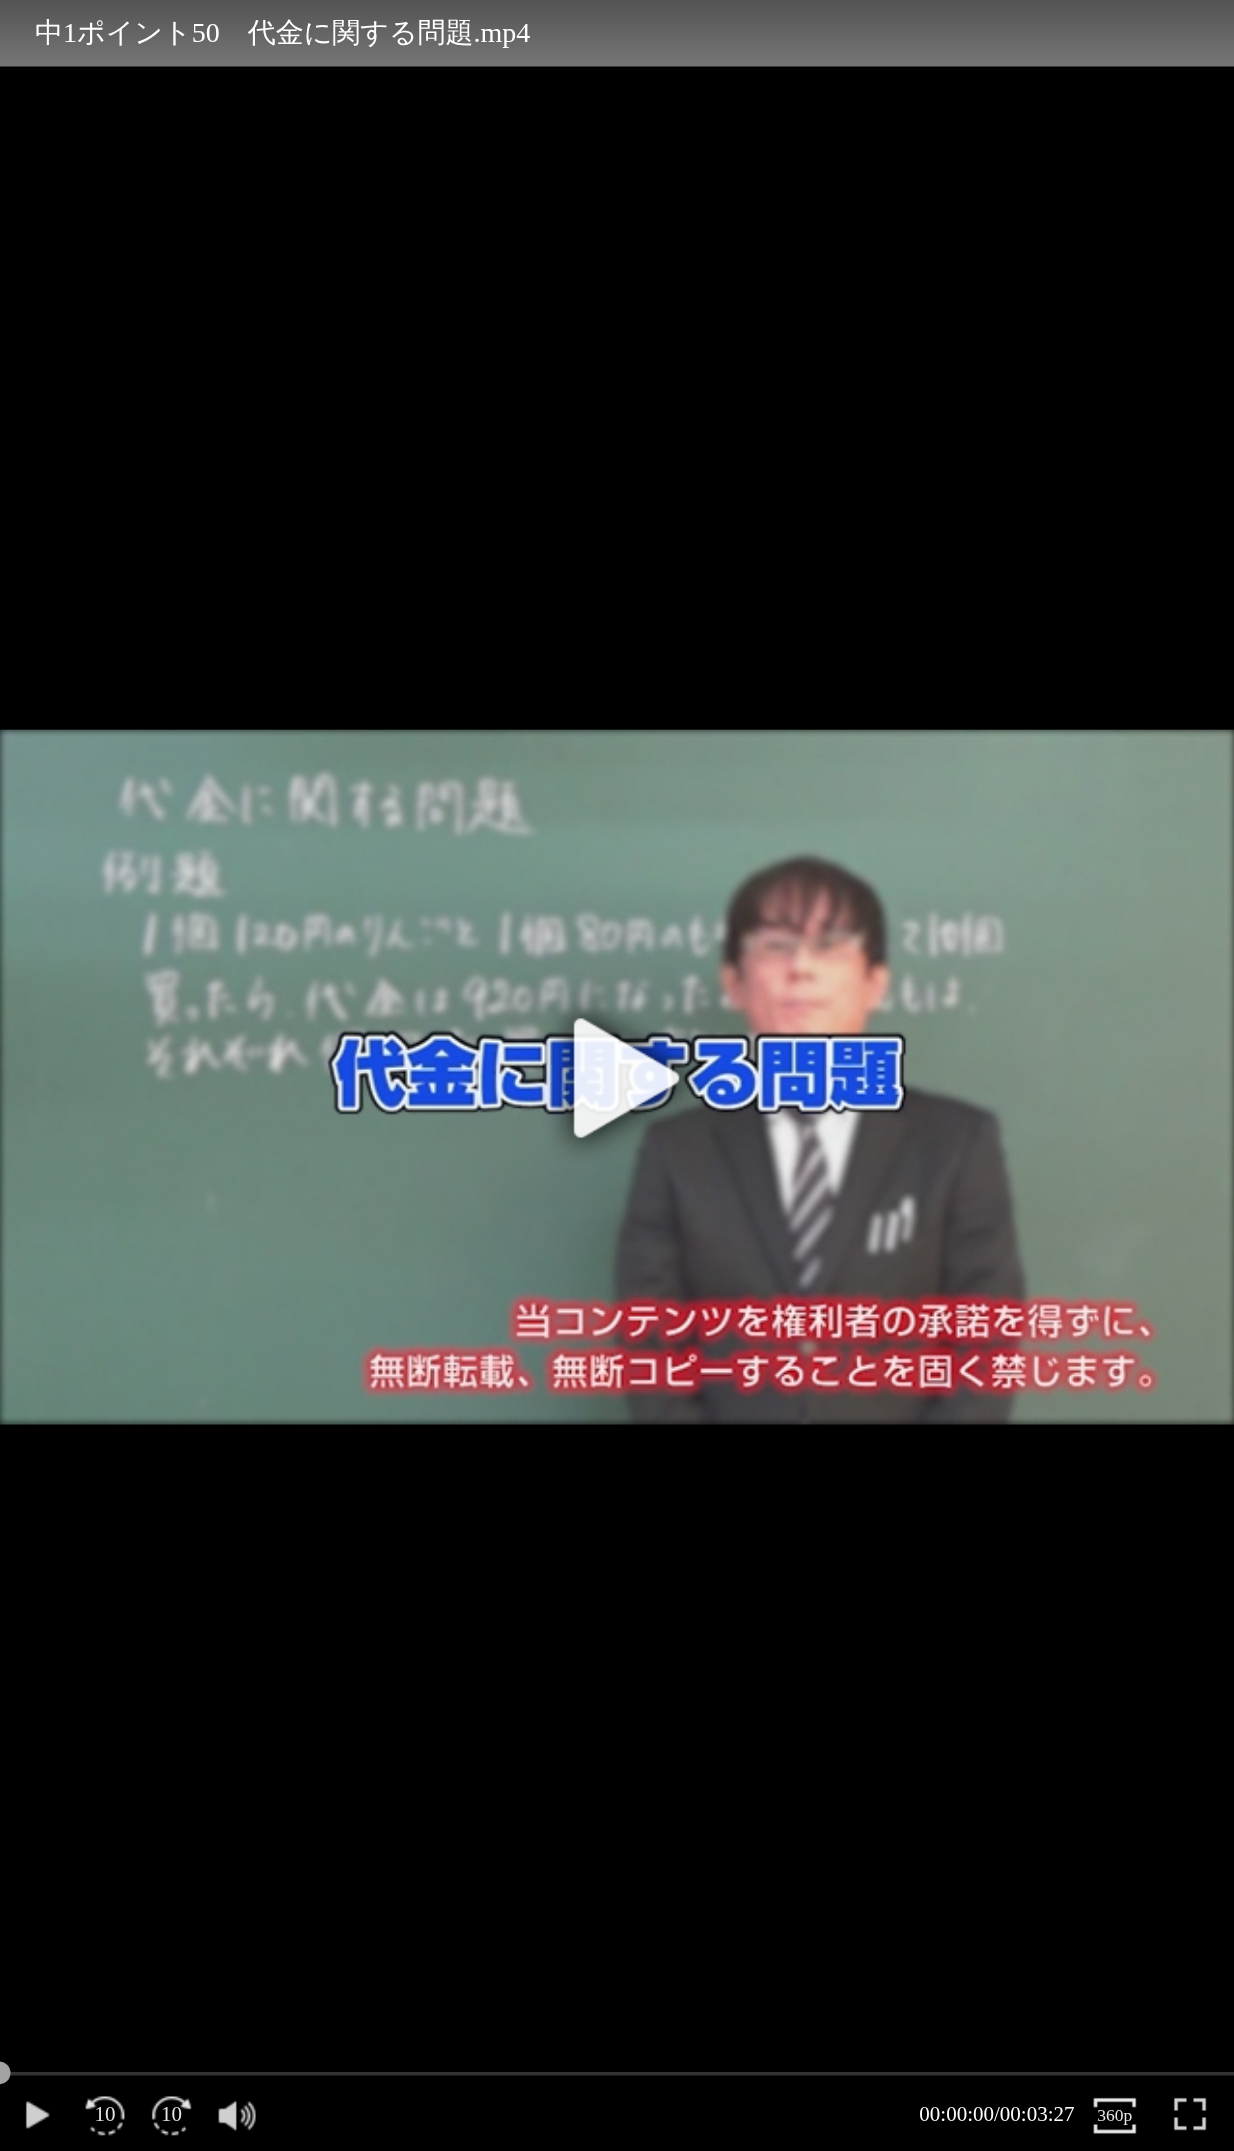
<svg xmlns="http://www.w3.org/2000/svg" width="1234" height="2151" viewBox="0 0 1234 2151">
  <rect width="100%" height="100%" fill="#fff"/>
  <image x="0" y="0" width="1234" height="2151" href="images/1.png"/>
</svg>
